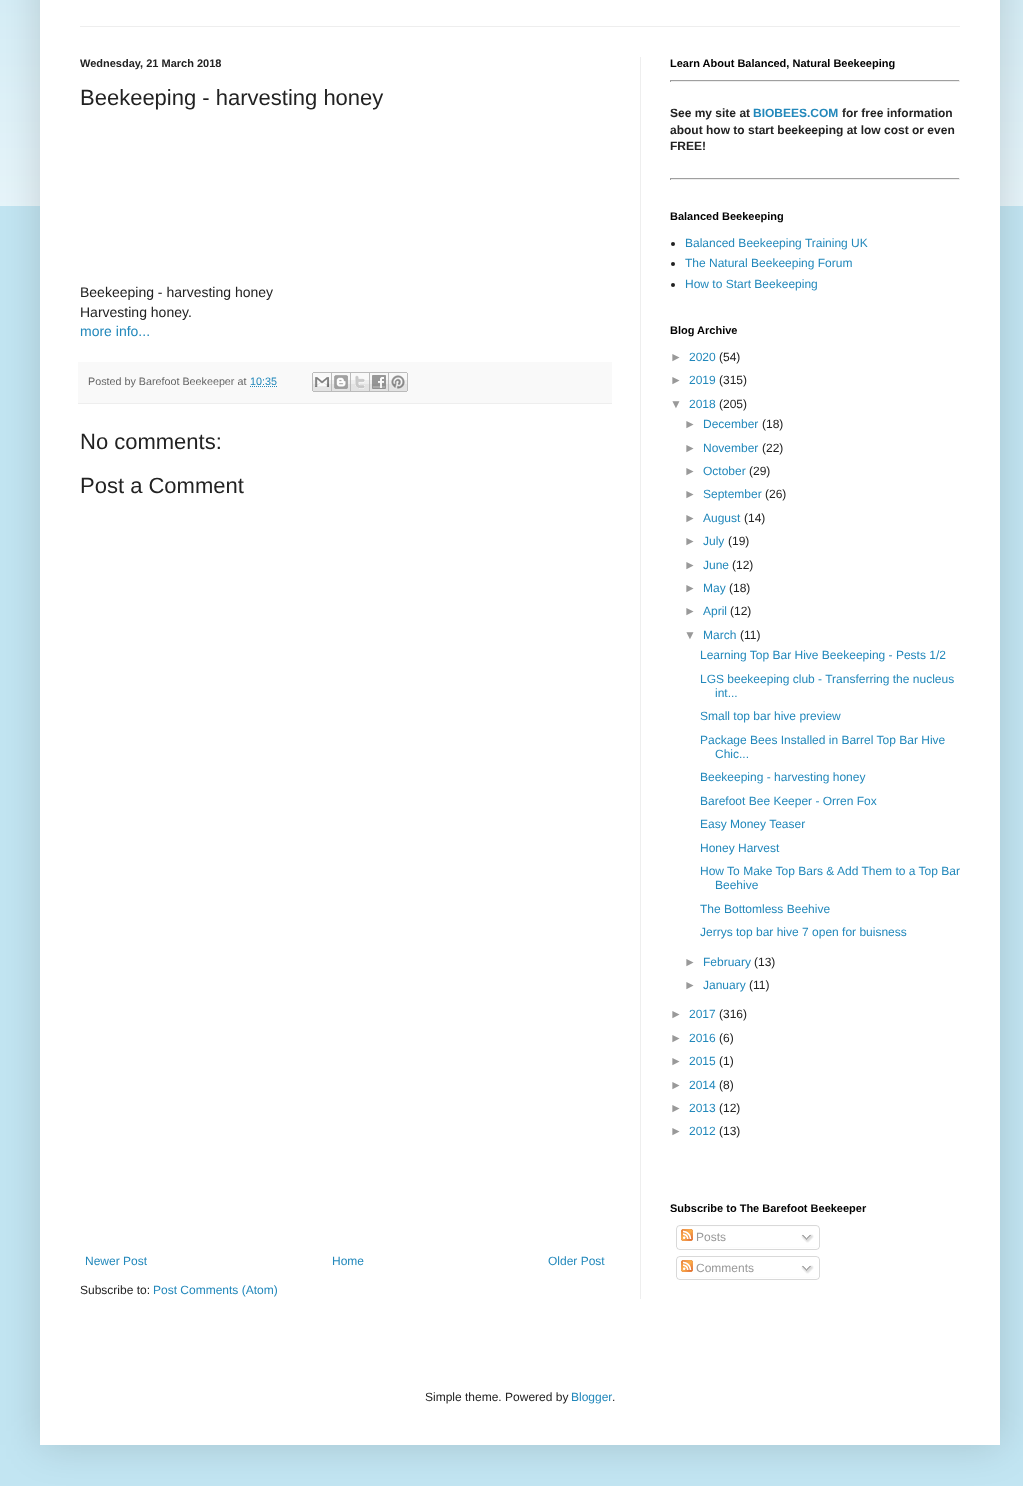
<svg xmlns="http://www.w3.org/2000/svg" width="1023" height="1486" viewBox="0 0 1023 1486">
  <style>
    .t1 { font: bold 11px Liberation Sans; fill: #222; }
    .t2 { font: 22px Liberation Sans; fill: #222; }
    .t3 { font: 14px Liberation Sans; fill: #222; }
    .t4 { font: 14px Liberation Sans; fill: #28b; }
    .t5 { font: 10.75px Liberation Sans; fill: #666; }
    .t6 { font: 10.75px Liberation Sans; fill: #28b; }
    .t7 { font: 12px Liberation Sans; fill: #28b; }
    .t8 { font: 12px Liberation Sans; fill: #222; }
    .t9 { font: bold 11px Liberation Sans; fill: #000; }
    .t10 { font: bold 12px Liberation Sans; fill: #222; }
    .t11 { font: bold 12px Liberation Sans; fill: #28b; }
    .t12 { font: 12px Liberation Sans; fill: #999; }
  </style>
  <rect width="100%" height="100%" fill="#c2e5f2"/>
  <image x="0" y="0" width="1023" height="206" href="images/1.png"/>
  <rect x="40" y="-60" width="960" height="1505" fill="#00000026" filter="blur(20px)"/>
  <rect x="40" y="0" width="960" height="1445" fill="#fff"/>
  <rect x="80" y="26" width="880" height="1" fill="#eee"/>
  <rect x="640" y="57" width="1" height="1242" fill="#eee"/>
  <text x="80" y="67" class="t1">Wednesday, 21 March 2018</text>
  <text x="80" y="105" class="t2">Beekeeping - harvesting honey</text>
  <text x="80" y="297" class="t3">Beekeeping - harvesting honey</text>
  <text x="80" y="317" class="t3">Harvesting honey.</text>
  <text x="80" y="336" class="t4">more info...</text>
  <rect x="78" y="362" width="534" height="41" fill="#f9f9f9"/>
  <rect x="78" y="403" width="534" height="1" fill="#eee"/>
  <text x="88" y="385" class="t5">Posted by Barefoot Beekeeper at</text>
  <text x="250" y="385" class="t6">10:35</text>
  <path d="M250 386.5H277" fill="none" stroke="#28b" stroke-dasharray="1 1"/>
  <image x="312" y="372" width="20" height="20" href="images/2.png"/>
  <image x="332" y="372" width="19" height="20" href="images/3.png"/>
  <image x="351" y="372" width="19" height="20" href="images/4.png"/>
  <image x="370" y="372" width="19" height="20" href="images/5.png"/>
  <image x="389" y="372" width="19" height="20" href="images/6.png"/>
  <text x="80" y="449" class="t2">No comments:</text>
  <text x="80" y="493" class="t2">Post a Comment</text>
  <text x="85" y="1265" class="t7">Newer Post</text>
  <text x="332" y="1265" class="t7">Home</text>
  <text x="548" y="1265" class="t7">Older Post</text>
  <text x="80" y="1294" class="t8">Subscribe to:</text>
  <text x="153" y="1294" class="t7">Post Comments (Atom)</text>
  <text x="670" y="67" class="t9">Learn About Balanced, Natural Beekeeping</text>
  <rect x="670" y="80" width="290" height="1" fill="#9f9f9f"/>
  <rect x="959" y="80" width="1" height="2" fill="#eee"/>
  <rect x="670" y="81" width="290" height="1" fill="#eee"/>
  <rect x="670" y="80" width="1" height="2" fill="#9f9f9f"/>
  <text x="670" y="117" class="t10">See my site at</text>
  <text x="753" y="117" class="t11">BIOBEES.COM</text>
  <text x="842" y="117" class="t10">for free information</text>
  <text x="670" y="134" class="t10">about how to start beekeeping at low cost or even</text>
  <text x="670" y="150" class="t10">FREE!</text>
  <rect x="670" y="178" width="290" height="1" fill="#9f9f9f"/>
  <rect x="959" y="178" width="1" height="2" fill="#eee"/>
  <rect x="670" y="179" width="290" height="1" fill="#eee"/>
  <rect x="670" y="178" width="1" height="2" fill="#9f9f9f"/>
  <text x="670" y="220" class="t9">Balanced Beekeeping</text>
  <circle cx="673" cy="244" r="2" fill="#222"/>
  <text x="685" y="247" class="t7">Balanced Beekeeping Training UK</text>
  <circle cx="673" cy="264" r="2" fill="#222"/>
  <text x="685" y="267" class="t7">The Natural Beekeeping Forum</text>
  <circle cx="673" cy="285" r="2" fill="#222"/>
  <text x="685" y="288" class="t7">How to Start Beekeeping</text>
  <text x="670" y="334" class="t9">Blog Archive</text>
  <text x="670" y="361" class="t12">►</text>
  <text x="689" y="361" class="t7">2020</text>
  <text x="719" y="361" class="t8">(54)</text>
  <text x="670" y="384" class="t12">►</text>
  <text x="689" y="384" class="t7">2019</text>
  <text x="719" y="384" class="t8">(315)</text>
  <text x="670" y="408" class="t12">▼</text>
  <text x="689" y="408" class="t7">2018</text>
  <text x="719" y="408" class="t8">(205)</text>
  <text x="684" y="428" class="t12">►</text>
  <text x="703" y="428" class="t7">December</text>
  <text x="762" y="428" class="t8">(18)</text>
  <text x="684" y="452" class="t12">►</text>
  <text x="703" y="452" class="t7">November</text>
  <text x="762" y="452" class="t8">(22)</text>
  <text x="684" y="475" class="t12">►</text>
  <text x="703" y="475" class="t7">October</text>
  <text x="749" y="475" class="t8">(29)</text>
  <text x="684" y="498" class="t12">►</text>
  <text x="703" y="498" class="t7">September</text>
  <text x="765" y="498" class="t8">(26)</text>
  <text x="684" y="522" class="t12">►</text>
  <text x="703" y="522" class="t7">August</text>
  <text x="744" y="522" class="t8">(14)</text>
  <text x="684" y="545" class="t12">►</text>
  <text x="703" y="545" class="t7">July</text>
  <text x="728" y="545" class="t8">(19)</text>
  <text x="684" y="569" class="t12">►</text>
  <text x="703" y="569" class="t7">June</text>
  <text x="732" y="569" class="t8">(12)</text>
  <text x="684" y="592" class="t12">►</text>
  <text x="703" y="592" class="t7">May</text>
  <text x="729" y="592" class="t8">(18)</text>
  <text x="684" y="615" class="t12">►</text>
  <text x="703" y="615" class="t7">April</text>
  <text x="730" y="615" class="t8">(12)</text>
  <text x="684" y="639" class="t12">▼</text>
  <text x="703" y="639" class="t7">March</text>
  <text x="740" y="639" class="t8">(11)</text>
  <text x="700" y="659" class="t7">Learning Top Bar Hive Beekeeping - Pests 1/2</text>
  <text x="700" y="683" class="t7">LGS beekeeping club - Transferring the nucleus</text>
  <text x="715" y="697" class="t7">int...</text>
  <text x="700" y="720" class="t7">Small top bar hive preview</text>
  <text x="700" y="744" class="t7">Package Bees Installed in Barrel Top Bar Hive</text>
  <text x="715" y="758" class="t7">Chic...</text>
  <text x="700" y="781" class="t7">Beekeeping - harvesting honey</text>
  <text x="700" y="805" class="t7">Barefoot Bee Keeper - Orren Fox</text>
  <text x="700" y="828" class="t7">Easy Money Teaser</text>
  <text x="700" y="852" class="t7">Honey Harvest</text>
  <text x="700" y="875" class="t7">How To Make Top Bars &amp; Add Them to a Top Bar</text>
  <text x="715" y="889" class="t7">Beehive</text>
  <text x="700" y="913" class="t7">The Bottomless Beehive</text>
  <text x="700" y="936" class="t7">Jerrys top bar hive 7 open for buisness</text>
  <text x="684" y="966" class="t12">►</text>
  <text x="703" y="966" class="t7">February</text>
  <text x="754" y="966" class="t8">(13)</text>
  <text x="684" y="989" class="t12">►</text>
  <text x="703" y="989" class="t7">January</text>
  <text x="749" y="989" class="t8">(11)</text>
  <text x="670" y="1018" class="t12">►</text>
  <text x="689" y="1018" class="t7">2017</text>
  <text x="719" y="1018" class="t8">(316)</text>
  <text x="670" y="1042" class="t12">►</text>
  <text x="689" y="1042" class="t7">2016</text>
  <text x="719" y="1042" class="t8">(6)</text>
  <text x="670" y="1065" class="t12">►</text>
  <text x="689" y="1065" class="t7">2015</text>
  <text x="719" y="1065" class="t8">(1)</text>
  <text x="670" y="1089" class="t12">►</text>
  <text x="689" y="1089" class="t7">2014</text>
  <text x="719" y="1089" class="t8">(8)</text>
  <text x="670" y="1112" class="t12">►</text>
  <text x="689" y="1112" class="t7">2013</text>
  <text x="719" y="1112" class="t8">(12)</text>
  <text x="670" y="1135" class="t12">►</text>
  <text x="689" y="1135" class="t7">2012</text>
  <text x="719" y="1135" class="t8">(13)</text>
  <text x="670" y="1212" class="t9">Subscribe to The Barefoot Beekeeper</text>
  <image x="676" y="1225" width="144" height="22" href="images/7.png"/>
  <image x="681" y="1229" width="12" height="12" href="images/8.png"/>
  <text x="696" y="1241" class="t12">Posts</text>
  <image x="801" y="1234" width="13" height="9" href="images/9.png"/>
  <image x="676" y="1247" width="144" height="3" href="images/10.png"/>
  <image x="676" y="1256" width="144" height="21" href="images/11.png"/>
  <image x="681" y="1260" width="12" height="12" href="images/8.png"/>
  <text x="696" y="1272" class="t12">Comments</text>
  <image x="801" y="1265" width="13" height="9" href="images/9.png"/>
  <image x="676" y="1277" width="144" height="3" href="images/10.png"/>
  <text x="425" y="1401" class="t8">Simple theme. Powered by</text>
  <text x="571" y="1401" class="t7">Blogger</text>
  <text x="612" y="1401" class="t8">.</text>
</svg>
